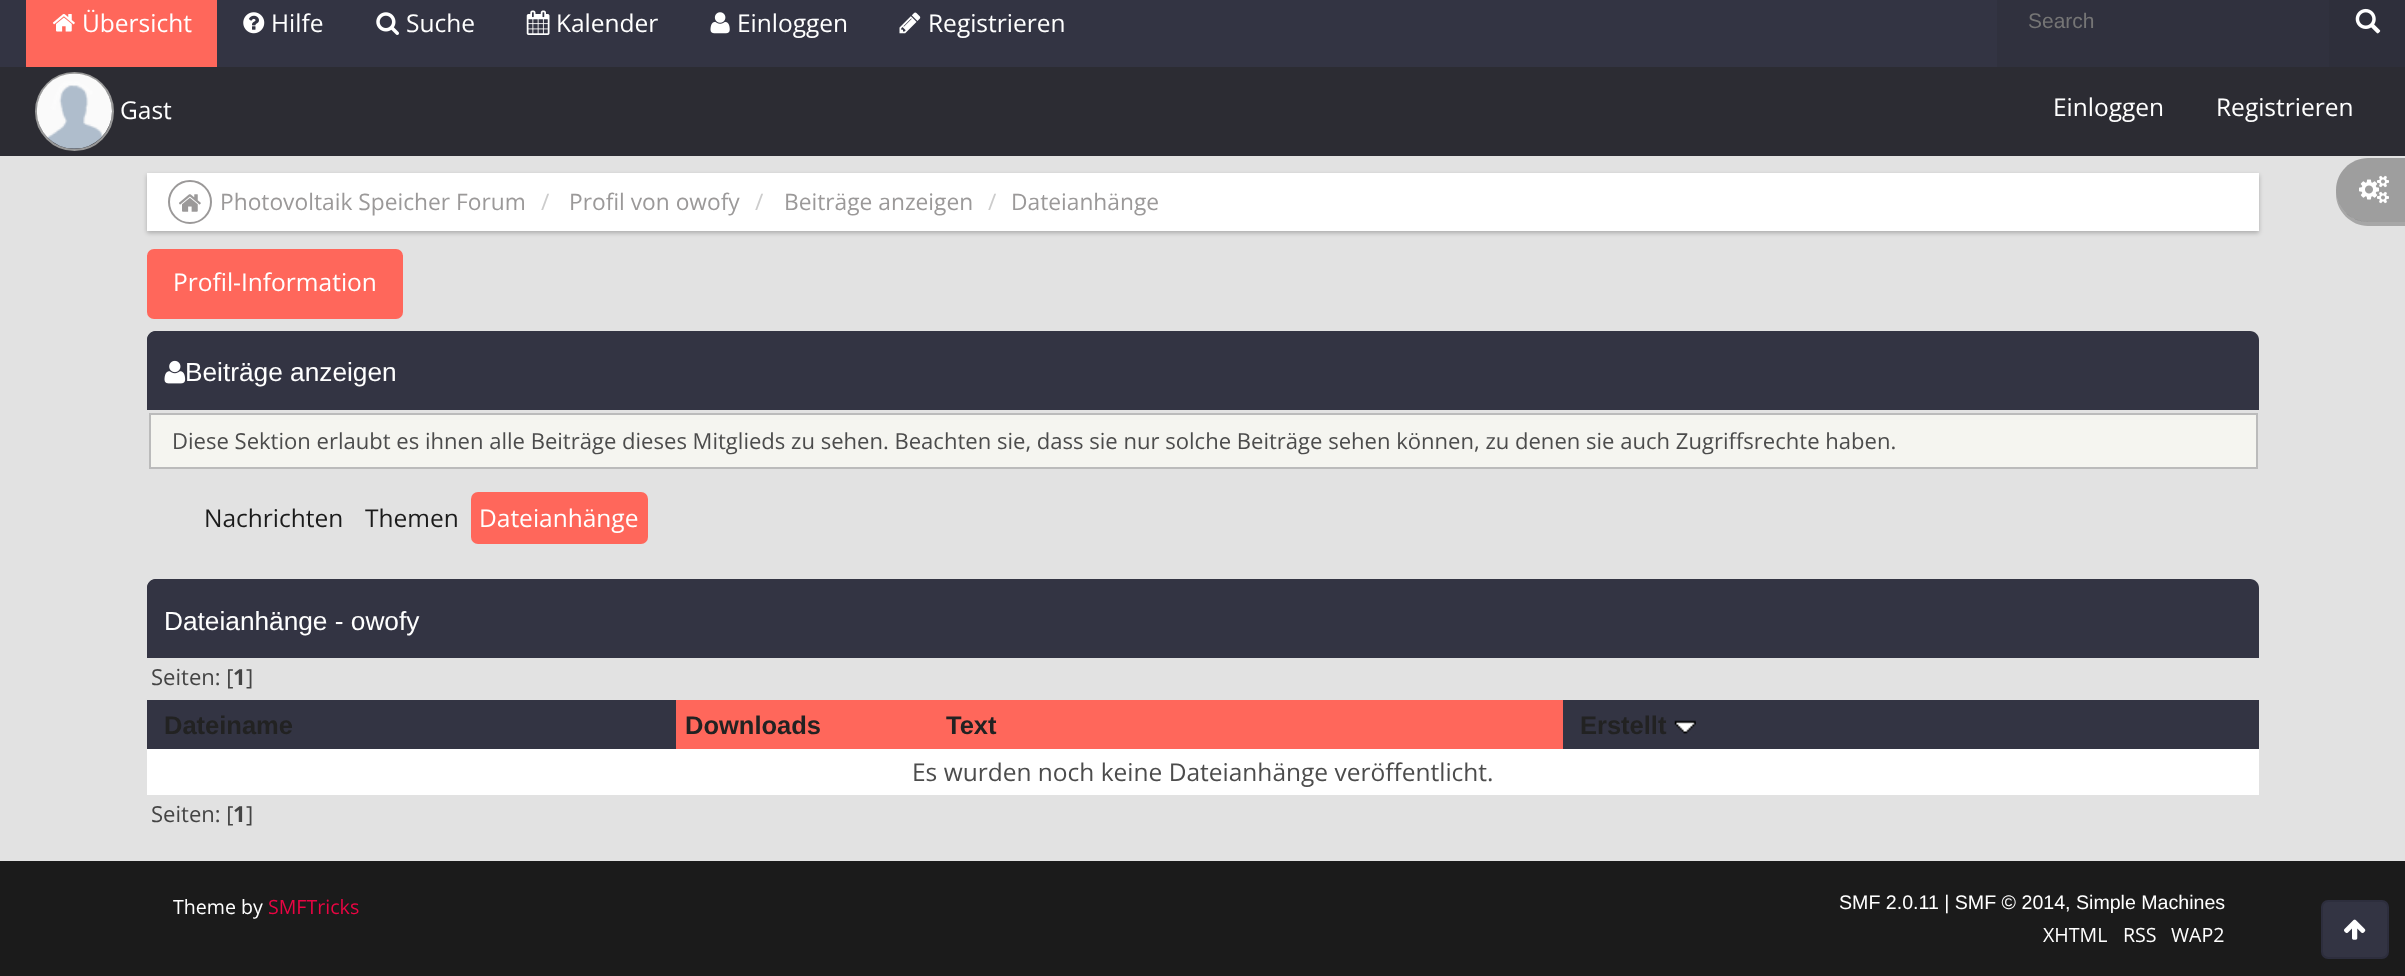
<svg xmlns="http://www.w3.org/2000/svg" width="2405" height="976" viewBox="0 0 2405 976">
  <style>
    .t1 { font: 24.5px Open Sans; fill: #fff; }
    .t2 { font: 21px Liberation Sans; fill: #757575; }
    .t3 { font: 22.75px Open Sans; fill: #9b9999; }
    .t4 { font: 22.75px Open Sans; fill: #ccc; }
    .t5 { font: 26.25px Liberation Sans; fill: #fff; }
    .t6 { font: 22.05px Open Sans; fill: #4c4c4c; }
    .t7 { font: 24.5px Open Sans; fill: #1b1b1b; }
    .t8 { font: 22.05px Open Sans; fill: #444; }
    .t9 { font: bold 22.05px Open Sans; fill: #444; }
    .t10 { font: bold 25.5px Liberation Sans; fill: #222; }
    .t11 { font: 24.5px Open Sans; fill: #4c4c4c; }
    .t12 { font: 19.6px Open Sans; fill: #fff; }
    .t13 { font: 19.6px Open Sans; fill: #e90543; }
    .t14 { font: 19.6px Liberation Sans; fill: #fff; }
  </style>
  <rect width="100%" height="100%" fill="#e2e2e2"/>
  <rect x="0" y="0" width="1997" height="67" fill="#333443"/>
  <rect x="26" y="0" width="191" height="67" fill="#ff675b"/>
  <image x="52" y="14" width="23" height="18" href="images/1.png"/>
  <text x="82" y="32" class="t1">Übersicht</text>
  <image x="243" y="12" width="22" height="22" href="images/2.png"/>
  <text x="271" y="32" class="t1">Hilfe</text>
  <image x="376" y="12" width="23" height="23" href="images/3.png"/>
  <text x="406" y="32" class="t1">Suche</text>
  <image x="526" y="10" width="24" height="25" href="images/4.png"/>
  <text x="556" y="32" class="t1">Kalender</text>
  <image x="710" y="12" width="20" height="22" href="images/5.png"/>
  <text x="737" y="32" class="t1">Einloggen</text>
  <image x="899" y="12" width="22" height="22" href="images/6.png"/>
  <text x="928" y="32" class="t1">Registrieren</text>
  <rect x="1997" y="0" width="332" height="67" fill="#30313e"/>
  <text x="2028" y="28" class="t2">Search</text>
  <rect x="2329" y="0" width="76" height="67" fill="#2e2f3b"/>
  <image x="2355" y="8" width="26" height="26" href="images/7.png"/>
  <rect x="0" y="67" width="2405" height="89" fill="#2c2c33"/>
  <circle cx="74.5" cy="111.5" r="38.5" fill="none" stroke="#989898" stroke-width="2"/>
  <image x="36" y="73" width="76" height="76" href="images/8.png"/>
  <text x="120" y="119" class="t1">Gast</text>
  <text x="2053" y="116" class="t1">Einloggen</text>
  <text x="2216" y="116" class="t1">Registrieren</text>
  <rect x="147" y="175" width="2112" height="58" fill="#0000003d" filter="blur(2px)"/>
  <rect x="147" y="173" width="2112" height="58" fill="#fff"/>
  <circle cx="190" cy="202" r="21" fill="none" stroke="#9b9999" stroke-width="2"/>
  <image x="179" y="194" width="22" height="18" href="images/9.png"/>
  <text x="220" y="210" class="t3">Photovoltaik Speicher Forum</text>
  <text x="541" y="210" class="t4">/</text>
  <text x="569" y="210" class="t3">Profil von owofy</text>
  <text x="755" y="210" class="t4">/</text>
  <text x="784" y="210" class="t3">Beiträge anzeigen</text>
  <text x="988" y="210" class="t4">/</text>
  <text x="1011" y="210" class="t3">Dateianhänge</text>
  <rect x="147" y="249" width="256" height="70" rx="7" fill="#ff675b"/>
  <text x="173" y="291" class="t1">Profil-Information</text>
  <path d="M156 331H2250C2255 331 2259 335 2259 340V410H147V340C147 335 151 331 156 331Z" fill="#333443"/>
  <path d="M156 331H2245V359H147V340C147 335 151 331 156 331Z" fill="#333443"/>
  <image x="164" y="360" width="22" height="24" href="images/10.png"/>
  <text x="185" y="381" class="t5">Beiträge anzeigen</text>
  <rect x="150" y="414" width="2107" height="54" fill="#f5f5f0" stroke="#bbb" stroke-width="2"/>
  <text x="172" y="449" class="t6">Diese Sektion erlaubt es ihnen alle Beiträge dieses Mitglieds zu sehen. Beachten sie, dass sie nur solche Beiträge sehen können, zu denen sie auch Zugriffsrechte haben.</text>
  <text x="204" y="527" class="t7">Nachrichten</text>
  <text x="365" y="527" class="t7">Themen</text>
  <rect x="471" y="492" width="177" height="52" rx="7" fill="#ff675b"/>
  <text x="479" y="527" class="t1">Dateianhänge</text>
  <path d="M156 579H2250C2255 579 2259 583 2259 588V658H147V588C147 583 151 579 156 579Z" fill="#333443"/>
  <path d="M156 579H2245V658H147V588C147 583 151 579 156 579Z" fill="#333443"/>
  <text x="164" y="630" class="t5">Dateianhänge - owofy</text>
  <text x="151" y="685" class="t8">Seiten: [</text>
  <text x="233" y="685" class="t9">1</text>
  <text x="246" y="685" class="t8">]</text>
  <rect x="676" y="700" width="887" height="49" fill="#ff675b"/>
  <rect x="147" y="700" width="529" height="49" fill="#333443"/>
  <text x="164" y="734" class="t10">Dateiname</text>
  <text x="685" y="734" class="t10">Downloads</text>
  <text x="946" y="734" class="t10">Text</text>
  <rect x="1563" y="700" width="696" height="49" fill="#333443"/>
  <text x="1580" y="734" class="t10">Erstellt</text>
  <image x="1674" y="720" width="22" height="14" href="images/11.png"/>
  <rect x="147" y="749" width="2112" height="46" fill="#fff"/>
  <text x="912" y="781" class="t11">Es wurden noch keine Dateianhänge veröffentlicht.</text>
  <text x="151" y="822" class="t8">Seiten: [</text>
  <text x="233" y="822" class="t9">1</text>
  <text x="246" y="822" class="t8">]</text>
  <path d="M2336 189V194C2336 211 2351 226 2368 226H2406V222H2369C2351 222 2336 208 2336 190Z" fill="#a7a7a7"/>
  <path d="M2368 158H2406V222H2368C2350.5 222 2336 207.5 2336 190C2336 172.5 2350.5 158 2368 158Z" fill="#0000004d"/>
  <image x="2359" y="175" width="30" height="29" href="images/12.png"/>
  <rect x="0" y="861" width="2405" height="115" fill="#1b1b1b"/>
  <text x="173" y="914" class="t12">Theme by</text>
  <text x="268" y="914" class="t13">SMFTricks</text>
  <text x="1839" y="909" class="t14">SMF 2.0.11 | SMF © 2014, Simple Machines</text>
  <text x="2043" y="942" class="t12">XHTML</text>
  <text x="2123" y="942" class="t12">RSS</text>
  <text x="2171" y="942" class="t12">WAP2</text>
  <rect x="2322" y="901" width="66" height="57" rx="6" fill="#333443" stroke="#2d2e3d" stroke-width="2"/>
  <image x="2344" y="919" width="22" height="21" href="images/13.png"/>
</svg>
